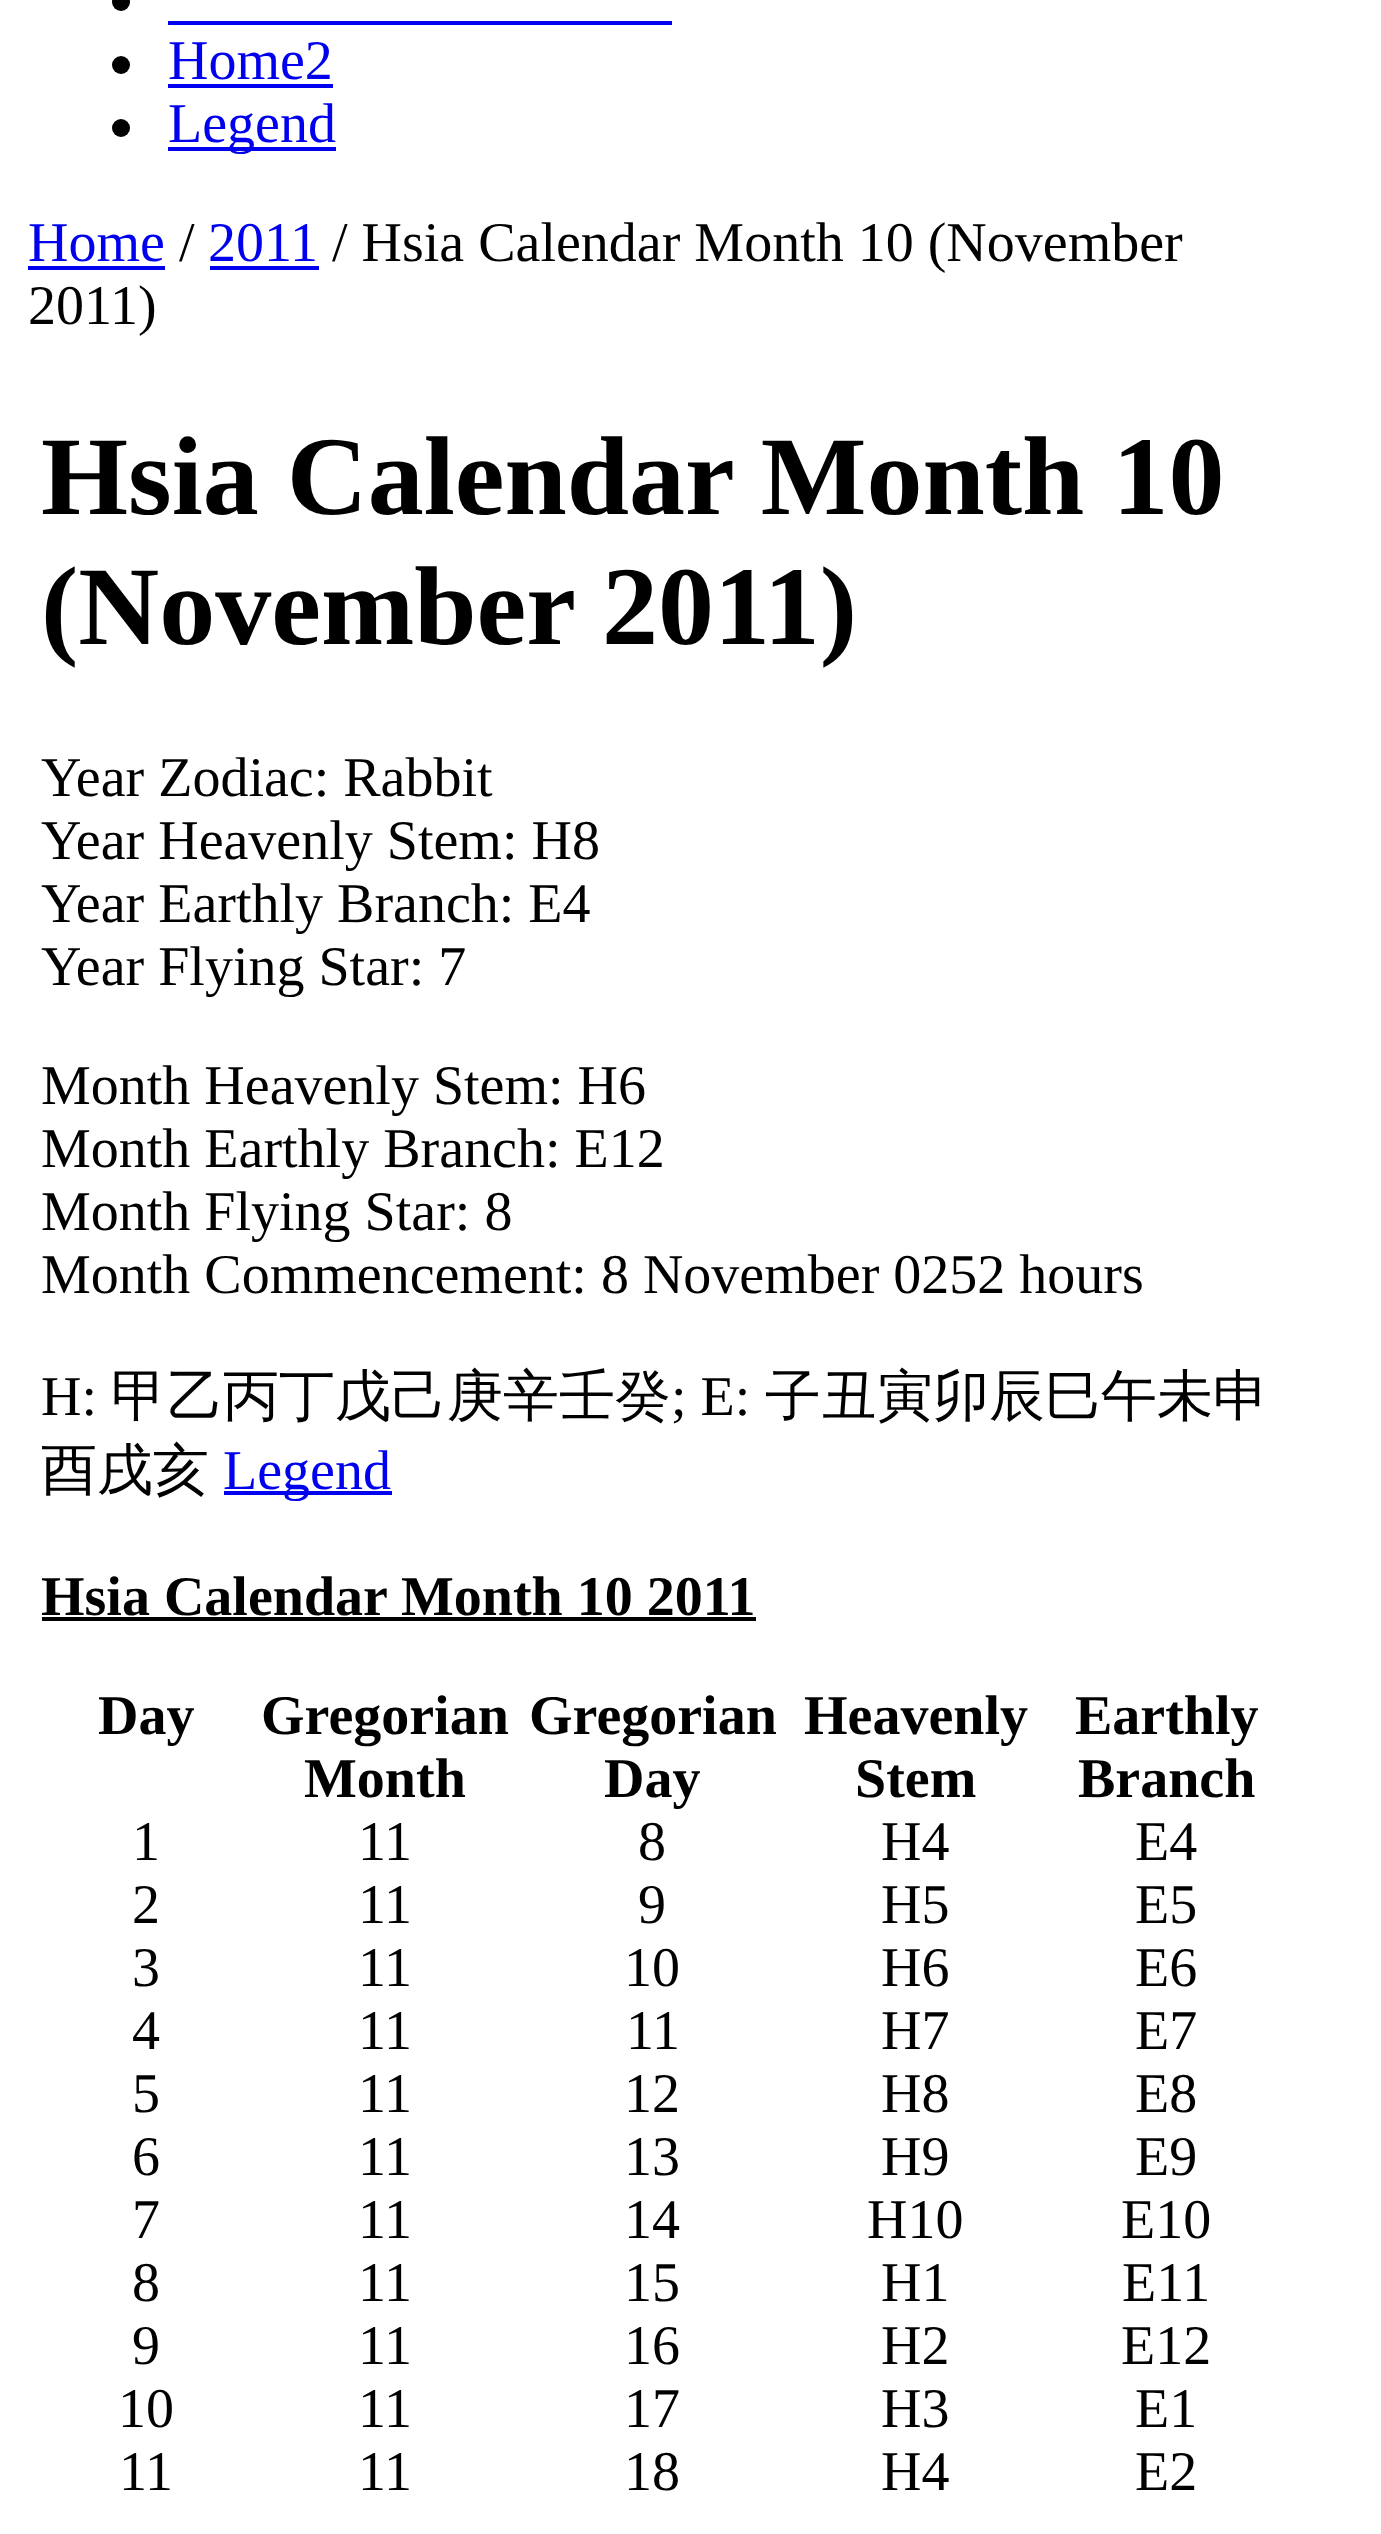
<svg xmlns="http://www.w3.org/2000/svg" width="1381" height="2534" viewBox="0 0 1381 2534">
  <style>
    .t1 { font: 56px Liberation Serif; fill: #00e; }
    .t2 { font: 56px Liberation Serif; fill: #000; }
    .t3 { font: bold 112px Liberation Serif; fill: #000; }
    .t4 { font: 500 56px WenQuanYi Zen Hei; fill: #000; }
    .t5 { font: bold 56px Liberation Serif; fill: #000; }
  </style>
  <rect width="100%" height="100%" fill="#fff"/>
  <circle cx="121" cy="2" r="9" fill="#000"/>
  <rect x="168" y="21" width="504" height="4" fill="#00e"/>
  <circle cx="121" cy="65" r="9" fill="#000"/>
  <text x="168" y="79" class="t1">Home2</text>
  <rect x="168" y="84" width="165" height="4" fill="#00e"/>
  <circle cx="121" cy="128" r="9" fill="#000"/>
  <rect x="168" y="147" width="168" height="4" fill="#00e"/>
  <text x="168" y="142" class="t1">Legend</text>
  <text x="28" y="261" class="t1">Home</text>
  <rect x="28" y="266" width="137" height="4" fill="#00e"/>
  <text x="179" y="261" class="t2">/</text>
  <text x="208" y="261" class="t1">2011</text>
  <rect x="210" y="266" width="109" height="4" fill="#00e"/>
  <text x="332" y="261" class="t2">/ Hsia Calendar Month 10 (November</text>
  <text x="28" y="324" class="t2">2011)</text>
  <text x="41" y="514" class="t3">Hsia Calendar Month 10</text>
  <text x="41" y="644" class="t3">(November 2011)</text>
  <text x="41" y="796" class="t2">Year Zodiac: Rabbit</text>
  <text x="41" y="859" class="t2">Year Heavenly Stem: H8</text>
  <text x="41" y="922" class="t2">Year Earthly Branch: E4</text>
  <text x="41" y="985" class="t2">Year Flying Star: 7</text>
  <text x="41" y="1104" class="t2">Month Heavenly Stem: H6</text>
  <text x="41" y="1167" class="t2">Month Earthly Branch: E12</text>
  <text x="41" y="1230" class="t2">Month Flying Star: 8</text>
  <text x="41" y="1293" class="t2">Month Commencement: 8 November 0252 hours</text>
  <text x="41" y="1415" class="t2">H:</text>
  <text x="111" y="1415" class="t4">甲乙丙丁戊己庚辛壬癸</text>
  <text x="671" y="1415" class="t2">; E:</text>
  <text x="765" y="1415" class="t4">子丑寅卯辰巳午未申</text>
  <text x="41" y="1489" class="t4">酉戌亥</text>
  <rect x="224" y="1491" width="168" height="4" fill="#00e"/>
  <text x="223" y="1489" class="t1">Legend</text>
  <text x="41" y="1615" class="t5">Hsia Calendar Month 10 2011</text>
  <rect x="42" y="1617" width="714" height="4" fill="#000"/>
  <text x="98" y="1734" class="t5">Day</text>
  <text x="261" y="1734" class="t5">Gregorian</text>
  <text x="304" y="1797" class="t5">Month</text>
  <text x="529" y="1734" class="t5">Gregorian</text>
  <text x="604" y="1797" class="t5">Day</text>
  <text x="804" y="1734" class="t5">Heavenly</text>
  <text x="855" y="1797" class="t5">Stem</text>
  <text x="1075" y="1734" class="t5">Earthly</text>
  <text x="1078" y="1797" class="t5">Branch</text>
  <text x="132" y="1860" class="t2">1</text>
  <text x="358" y="1860" class="t2">11</text>
  <text x="638" y="1860" class="t2">8</text>
  <text x="881" y="1860" class="t2">H4</text>
  <text x="1135" y="1860" class="t2">E4</text>
  <text x="132" y="1923" class="t2">2</text>
  <text x="358" y="1923" class="t2">11</text>
  <text x="638" y="1923" class="t2">9</text>
  <text x="881" y="1923" class="t2">H5</text>
  <text x="1135" y="1923" class="t2">E5</text>
  <text x="132" y="1986" class="t2">3</text>
  <text x="358" y="1986" class="t2">11</text>
  <text x="624" y="1986" class="t2">10</text>
  <text x="881" y="1986" class="t2">H6</text>
  <text x="1135" y="1986" class="t2">E6</text>
  <text x="132" y="2049" class="t2">4</text>
  <text x="358" y="2049" class="t2">11</text>
  <text x="626" y="2049" class="t2">11</text>
  <text x="881" y="2049" class="t2">H7</text>
  <text x="1135" y="2049" class="t2">E7</text>
  <text x="132" y="2112" class="t2">5</text>
  <text x="358" y="2112" class="t2">11</text>
  <text x="624" y="2112" class="t2">12</text>
  <text x="881" y="2112" class="t2">H8</text>
  <text x="1135" y="2112" class="t2">E8</text>
  <text x="132" y="2175" class="t2">6</text>
  <text x="358" y="2175" class="t2">11</text>
  <text x="624" y="2175" class="t2">13</text>
  <text x="881" y="2175" class="t2">H9</text>
  <text x="1135" y="2175" class="t2">E9</text>
  <text x="132" y="2238" class="t2">7</text>
  <text x="358" y="2238" class="t2">11</text>
  <text x="624" y="2238" class="t2">14</text>
  <text x="867" y="2238" class="t2">H10</text>
  <text x="1121" y="2238" class="t2">E10</text>
  <text x="132" y="2301" class="t2">8</text>
  <text x="358" y="2301" class="t2">11</text>
  <text x="624" y="2301" class="t2">15</text>
  <text x="881" y="2301" class="t2">H1</text>
  <text x="1122" y="2301" class="t2">E11</text>
  <text x="132" y="2364" class="t2">9</text>
  <text x="358" y="2364" class="t2">11</text>
  <text x="624" y="2364" class="t2">16</text>
  <text x="881" y="2364" class="t2">H2</text>
  <text x="1121" y="2364" class="t2">E12</text>
  <text x="118" y="2427" class="t2">10</text>
  <text x="358" y="2427" class="t2">11</text>
  <text x="624" y="2427" class="t2">17</text>
  <text x="881" y="2427" class="t2">H3</text>
  <text x="1135" y="2427" class="t2">E1</text>
  <text x="119" y="2490" class="t2">11</text>
  <text x="358" y="2490" class="t2">11</text>
  <text x="624" y="2490" class="t2">18</text>
  <text x="881" y="2490" class="t2">H4</text>
  <text x="1135" y="2490" class="t2">E2</text>
</svg>
